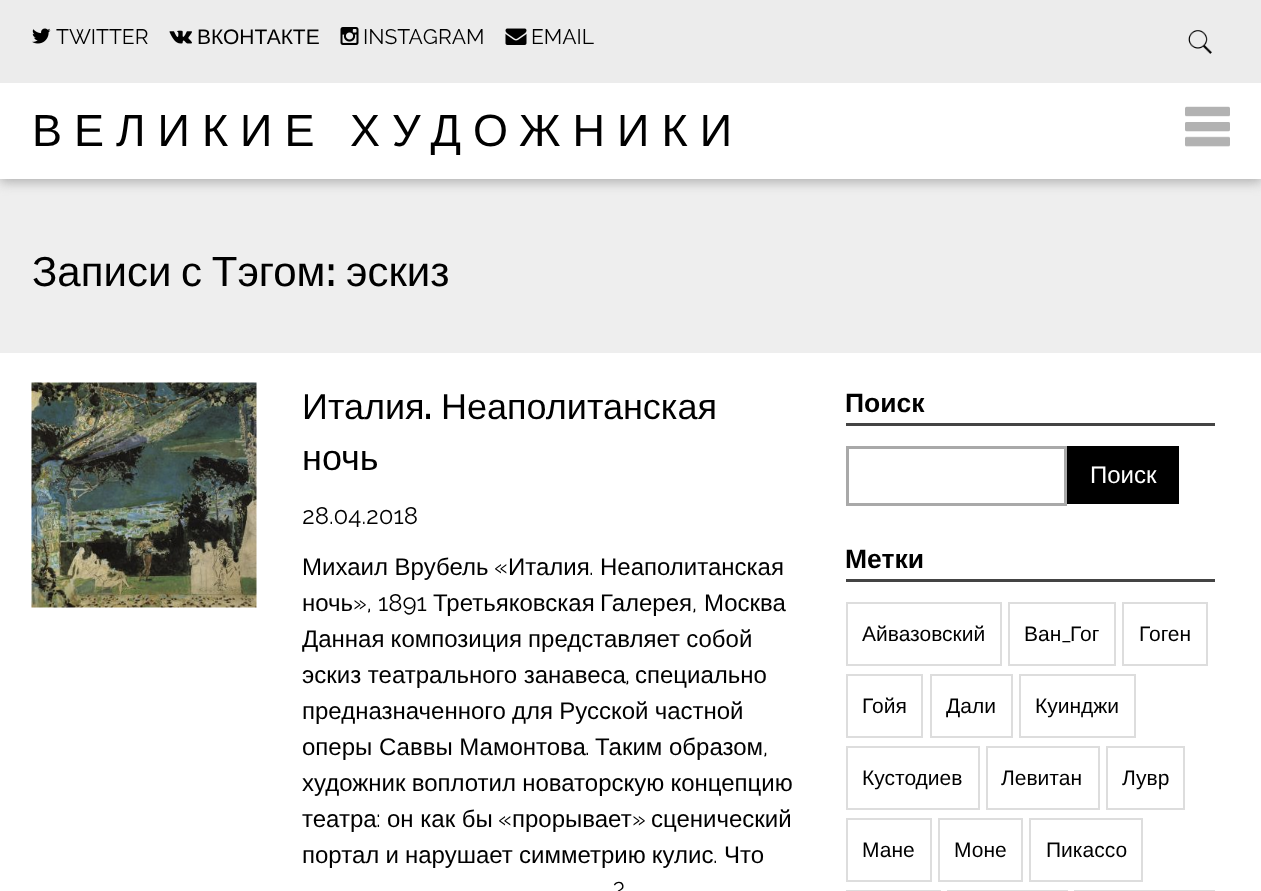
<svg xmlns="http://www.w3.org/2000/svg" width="1261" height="891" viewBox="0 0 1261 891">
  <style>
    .t1 { font: 21px Raleway; fill: #000; }
    .t2 { font: 21px Liberation Sans; fill: #000; }
    .t3 { font: 45px Liberation Sans; letter-spacing: 12px; fill: #000; }
    .t4 { font: 42px Liberation Sans; fill: #000; }
    .t5 { font: bold 42px Raleway; fill: #000; }
    .t6 { font: 36px Liberation Sans; fill: #000; }
    .t7 { font: bold 36px Raleway; fill: #000; }
    .t8 { font: 24px Raleway; fill: #000; }
    .t9 { font: 24px Liberation Sans; fill: #000; }
    .t10 { font: bold 26.5px Liberation Sans; fill: #000; }
    .t11 { font: 24px Liberation Sans; fill: #fff; }
  </style>
  <defs>
    <clipPath id="clip1"><path d="M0 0H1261V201H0ZM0 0H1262V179H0Z" clip-rule="evenodd"/></clipPath>
  </defs>
  <rect width="100%" height="100%" fill="#fff"/>
  <rect x="0" y="179" width="1261" height="174" fill="#eee"/>
  <g clip-path="url(#clip1)">
    <rect x="0" y="3" width="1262" height="179" fill="#aeaeae" filter="blur(6px)"/>
  </g>
  <rect x="0" y="0" width="1261" height="83" fill="#ececec"/>
  <image x="32" y="28" width="19" height="16" href="images/1.png"/>
  <text x="56" y="44" class="t1">TWITTER</text>
  <image x="169" y="30" width="23" height="14" href="images/2.png"/>
  <text x="197" y="44" class="t2">ВКОНТАКТЕ</text>
  <image x="340" y="27" width="19" height="18" href="images/3.png"/>
  <text x="363" y="44" class="t1">INSTAGRAM</text>
  <image x="505" y="28" width="22" height="17" href="images/4.png"/>
  <text x="531" y="44" class="t1">EMAIL</text>
  <image x="1188" y="30" width="24" height="24" href="images/5.png"/>
  <text x="32" y="146" word-spacing="-1" class="t3">ВЕЛИКИЕ ХУДОЖНИКИ</text>
  <image x="1185" y="106" width="45" height="41" href="images/6.png"/>
  <text x="32" y="286" word-spacing="-2" class="t4">Записи с Тэгом</text>
  <text x="326" y="286" class="t5">:</text>
  <text x="346" y="286" class="t4">эскиз</text>
  <image x="31" y="382" width="226" height="226" href="images/7.png"/>
  <text x="302" y="419" class="t6">Италия</text>
  <text x="424" y="419" class="t7">.</text>
  <text x="441" y="419" class="t6">Неаполитанская</text>
  <text x="302" y="470" class="t6">ночь</text>
  <text x="302" y="524" class="t8">28.04.2018</text>
  <text x="302" y="575" class="t9">Михаил Врубель</text>
  <text x="494" y="575" class="t8">«</text>
  <text x="508" y="575" class="t9">Италия</text>
  <text x="589" y="575" class="t8">.</text>
  <text x="600" y="575" class="t9">Неаполитанская</text>
  <text x="302" y="611" class="t9">ночь</text>
  <text x="353" y="611" class="t8">», 1891</text>
  <text x="433" y="611" class="t9">Третьяковская</text>
  <text x="600" y="611" class="t9">Галерея</text>
  <text x="692" y="611" class="t8">,</text>
  <text x="704" y="611" class="t9">Москва</text>
  <text x="302" y="647" word-spacing="-0.5" class="t9">Данная композиция представляет собой</text>
  <text x="302" y="683" class="t9">эскиз театрального занавеса</text>
  <text x="625" y="683" class="t8">,</text>
  <text x="635" y="683" class="t9">специально</text>
  <text x="302" y="719" word-spacing="-0.5" class="t9">предназначенного для Русской частной</text>
  <text x="302" y="755" class="t9">оперы Саввы Мамонтова</text>
  <text x="585" y="755" class="t8">.</text>
  <text x="595" y="755" class="t9">Таким образом</text>
  <text x="763" y="755" class="t8">,</text>
  <text x="302" y="791" word-spacing="-0.5" class="t9">художник воплотил новаторскую концепцию</text>
  <text x="302" y="827" class="t9">театра</text>
  <text x="376" y="827" class="t8">:</text>
  <text x="387" y="827" class="t9">он как бы</text>
  <text x="498" y="827" class="t8">«</text>
  <text x="512" y="827" class="t9">прорывает</text>
  <text x="632" y="827" class="t8">»</text>
  <text x="651" y="827" class="t9">сценический</text>
  <text x="302" y="863" word-spacing="-0.5" class="t9">портал и нарушает симметрию кулис</text>
  <text x="713" y="863" class="t8">.</text>
  <text x="724" y="863" class="t9">Что</text>
  <text x="613" y="899" class="t8">?</text>
  <rect x="846" y="423" width="369" height="3" fill="#444"/>
  <text x="845" y="412" class="t10">Поиск</text>
  <rect x="847.5" y="447.5" width="218" height="57" fill="none" stroke="#a9a9a9" stroke-width="3"/>
  <rect x="1067" y="446" width="112" height="58" fill="#000"/>
  <text x="1090" y="483" class="t11">Поиск</text>
  <rect x="846" y="579" width="369" height="3" fill="#444"/>
  <text x="845" y="568" class="t10">Метки</text>
  <rect x="847" y="603" width="154" height="62" fill="none" stroke="#ddd" stroke-width="2"/>
  <text x="862" y="641" class="t2">Айвазовский</text>
  <rect x="1009" y="603" width="106" height="62" fill="none" stroke="#ddd" stroke-width="2"/>
  <text x="1024" y="641" class="t2">Ван</text>
  <text x="1062" y="641" class="t1">_</text>
  <text x="1070" y="641" class="t2">Гог</text>
  <rect x="1123" y="603" width="84" height="62" fill="none" stroke="#ddd" stroke-width="2"/>
  <text x="1139" y="641" class="t2">Гоген</text>
  <rect x="847" y="675" width="75" height="62" fill="none" stroke="#ddd" stroke-width="2"/>
  <text x="862" y="713" class="t2">Гойя</text>
  <rect x="931" y="675" width="81" height="62" fill="none" stroke="#ddd" stroke-width="2"/>
  <text x="946" y="713" class="t2">Дали</text>
  <rect x="1020" y="675" width="115" height="62" fill="none" stroke="#ddd" stroke-width="2"/>
  <text x="1035" y="713" class="t2">Куинджи</text>
  <rect x="847" y="747" width="132" height="62" fill="none" stroke="#ddd" stroke-width="2"/>
  <text x="862" y="785" class="t2">Кустодиев</text>
  <rect x="987" y="747" width="112" height="62" fill="none" stroke="#ddd" stroke-width="2"/>
  <text x="1001" y="785" class="t2">Левитан</text>
  <rect x="1107" y="747" width="77" height="62" fill="none" stroke="#ddd" stroke-width="2"/>
  <text x="1122" y="785" class="t2">Лувр</text>
  <rect x="847" y="819" width="84" height="62" fill="none" stroke="#ddd" stroke-width="2"/>
  <text x="862" y="857" class="t2">Мане</text>
  <rect x="939" y="819" width="83" height="62" fill="none" stroke="#ddd" stroke-width="2"/>
  <text x="954" y="857" class="t2">Моне</text>
  <rect x="1030" y="819" width="112" height="62" fill="none" stroke="#ddd" stroke-width="2"/>
  <text x="1046" y="857" class="t2">Пикассо</text>
  <rect x="847" y="891" width="93" height="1" fill="none" stroke="#ddd" stroke-width="2"/>
  <rect x="948" y="891" width="119" height="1" fill="none" stroke="#ddd" stroke-width="2"/>
  <rect x="1075" y="891" width="139" height="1" fill="none" stroke="#ddd" stroke-width="2"/>
</svg>
